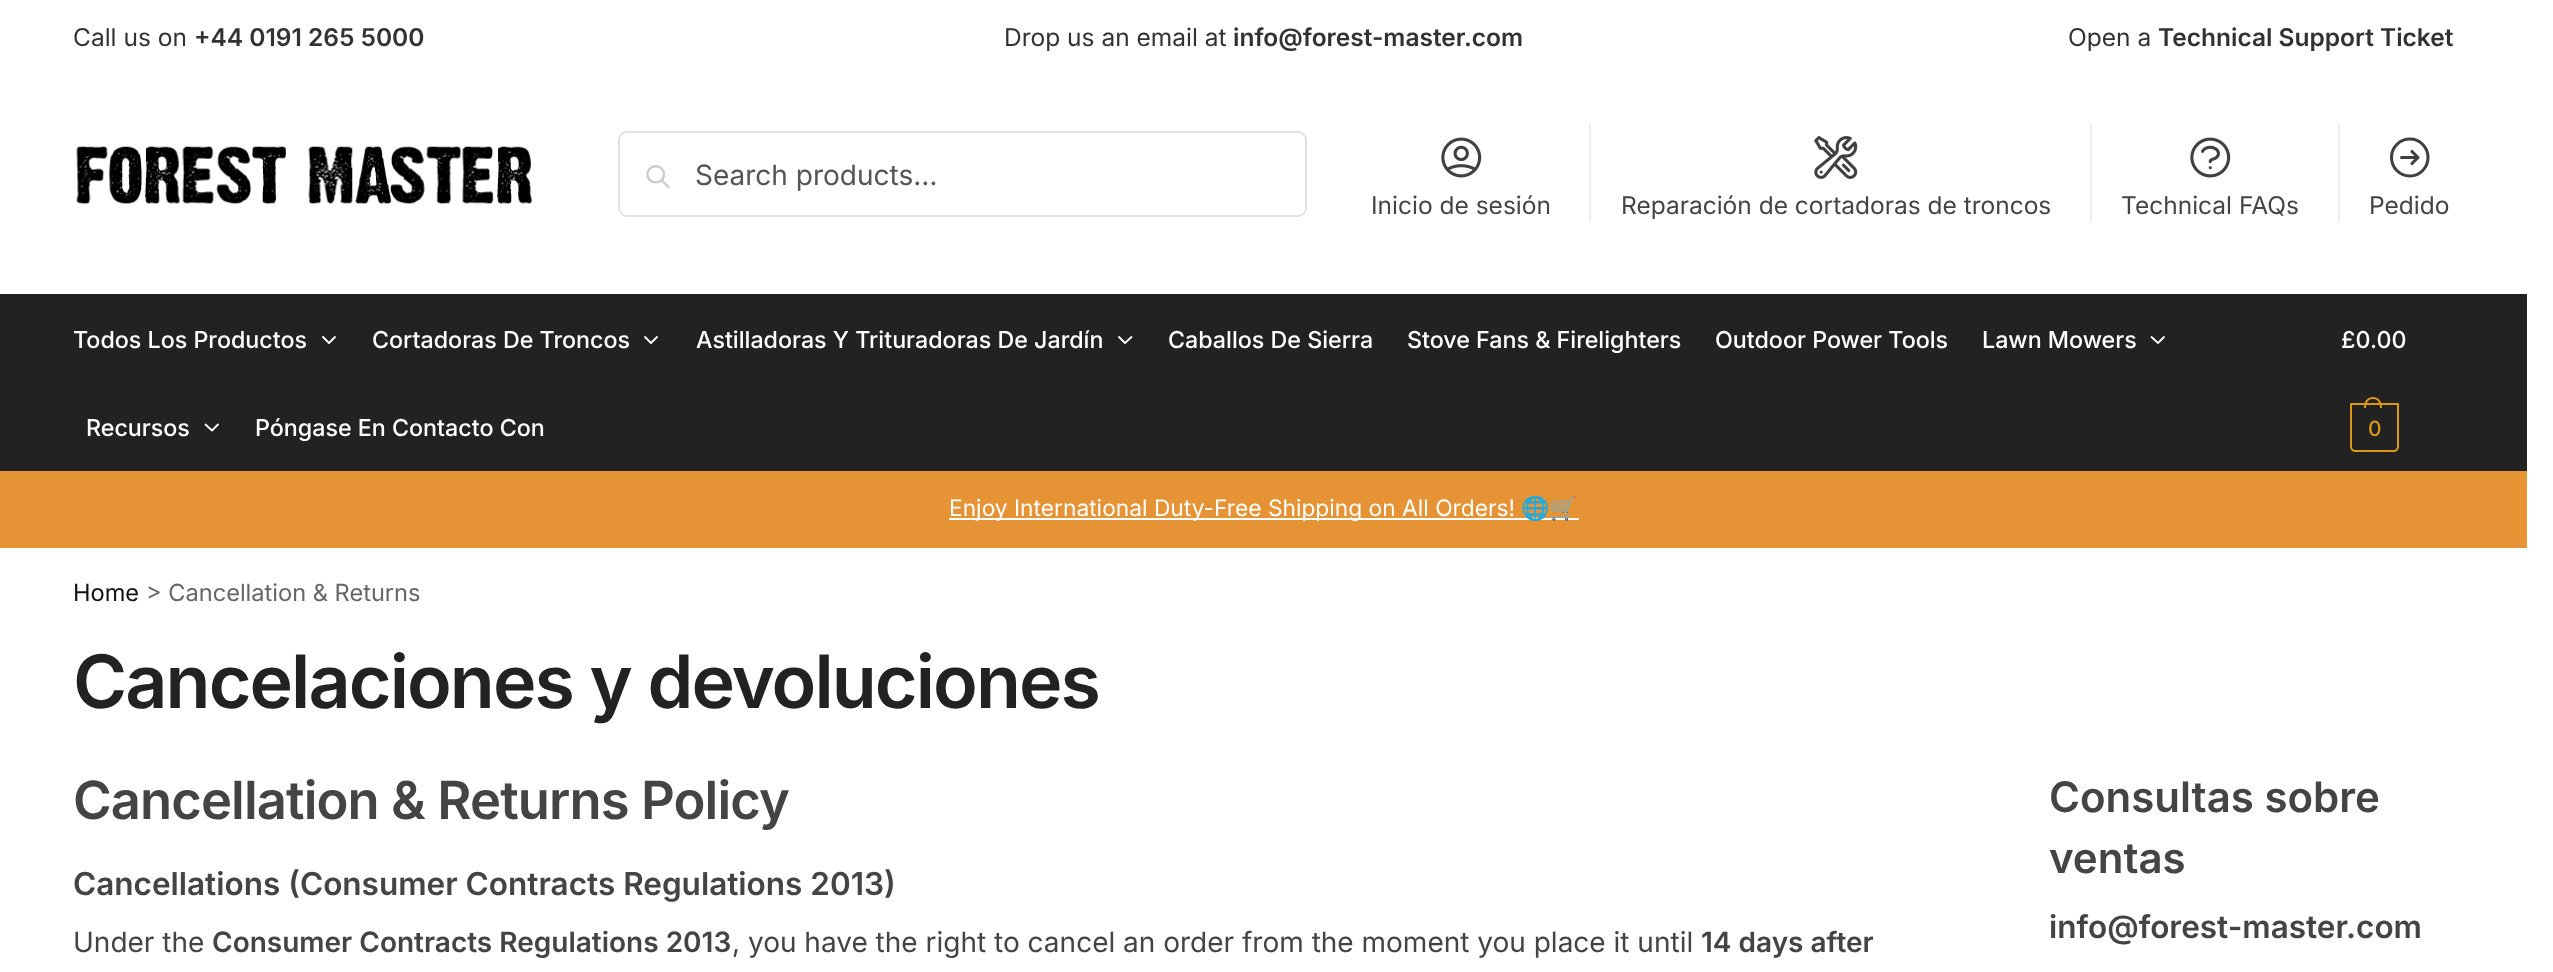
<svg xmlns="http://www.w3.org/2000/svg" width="2553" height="972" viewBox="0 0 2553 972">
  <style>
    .t1 { font: 24.5px Inter; fill: #323232; }
    .t2 { font: 600 24.5px Inter; fill: #323232; }
    .t3 { font: 28px Inter; fill: #555; }
    .t4 { font: 24.5px Inter; fill: #444; }
    .t5 { font: 500 23.25px Inter; fill: #fff; }
    .t6 { font: 500 21px Inter; letter-spacing: -1px; fill: #dc9814; }
    .t7 { font: 22.75px Inter; fill: #fff; }
    .t8 { font: 22.75px Noto Color Emoji; fill: #fff; }
    .t9 { font: 23.6px Inter; fill: #111; }
    .t10 { font: 23.6px Inter; fill: #666; }
    .t11 { font: 600 73.5px Inter; letter-spacing: -1.9px; fill: #222; }
    .t12 { font: 600 52.5px Inter; letter-spacing: -0.9px; fill: #444; }
    .t13 { font: 600 31.5px Inter; fill: #444; }
    .t14 { font: 28px Inter; fill: #444; }
    .t15 { font: 600 28px Inter; fill: #444; }
    .t16 { font: 600 42px Inter; fill: #444; }
  </style>
  <rect width="100%" height="100%" fill="#fff"/>
  <text x="73" y="46" class="t1">Call us on</text>
  <text x="194" y="46" class="t2">+44 0191 265 5000</text>
  <text x="1004" y="46" class="t1">Drop us an email at</text>
  <text x="1233" y="46" class="t2">info@forest-master.com</text>
  <text x="2068" y="46" class="t1">Open a</text>
  <text x="2158" y="46" class="t2">Technical Support Ticket</text>
  <image x="76" y="146" width="456" height="58" href="images/1.png"/>
  <rect x="619" y="132" width="687" height="84" rx="8" fill="none" stroke="#e2e2e2" stroke-width="2"/>
  <path d="M668.5 187L661.5 180M664 174.5C664 185 647.5 185 647.5 174.5C647.5 163.5 664 163.5 664 174.5Z" fill="none" stroke="#ccc" stroke-width="2.3" stroke-linecap="round" stroke-linejoin="round"/>
  <text x="695" y="185" class="t3">Search products…</text>
  <image x="1441" y="137" width="41" height="41" href="images/2.png"/>
  <text x="1371" y="214" class="t4">Inicio de sesión</text>
  <rect x="1589" y="124" width="2" height="98" fill="#eee"/>
  <image x="1814" y="136" width="44" height="43" href="images/3.png"/>
  <text x="1621" y="214" class="t4">Reparación de cortadoras de troncos</text>
  <rect x="2090" y="124" width="2" height="98" fill="#eee"/>
  <image x="2190" y="137" width="41" height="41" href="images/4.png"/>
  <text x="2121" y="214" class="t4">Technical FAQs</text>
  <rect x="2338" y="124" width="2" height="98" fill="#eee"/>
  <path d="M2412 151.5L2418 157.5M2418 157.5L2412 163.5M2418 157.5H2401.5M2428 157.5C2428 167.5 2420 176 2410 176C2399.5 176 2391.5 167.5 2391.5 157.5C2391.5 147.5 2399.5 139 2410 139C2420 139 2428 147.5 2428 157.5Z" fill="none" stroke="#404040" stroke-width="3.1" stroke-linecap="round" stroke-linejoin="round"/>
  <text x="2369" y="214" class="t4">Pedido</text>
  <rect x="0" y="294" width="2527" height="177" fill="#222"/>
  <text x="73" y="348" class="t5">Todos Los Productos</text>
  <path d="M335 337L329 343L323 337" fill="none" stroke="#fff" stroke-width="1.8" stroke-linecap="round" stroke-linejoin="round"/>
  <text x="372" y="348" class="t5">Cortadoras De Troncos</text>
  <path d="M657 337L651 343L645 337" fill="none" stroke="#fff" stroke-width="1.8" stroke-linecap="round" stroke-linejoin="round"/>
  <text x="696" y="348" class="t5">Astilladoras Y Trituradoras De Jardín</text>
  <path d="M1131.5 337L1125 343L1119 337" fill="none" stroke="#fff" stroke-width="1.8" stroke-linecap="round" stroke-linejoin="round"/>
  <text x="1168" y="348" class="t5">Caballos De Sierra</text>
  <text x="1407" y="348" class="t5">Stove Fans &amp; Firelighters</text>
  <text x="1715" y="348" class="t5">Outdoor Power Tools</text>
  <text x="1982" y="348" class="t5">Lawn Mowers</text>
  <path d="M2164 337L2158 343L2151.5 337" fill="none" stroke="#fff" stroke-width="1.8" stroke-linecap="round" stroke-linejoin="round"/>
  <text x="86" y="436" class="t5">Recursos</text>
  <path d="M218 424.5L212 430.5L205.5 424.5" fill="none" stroke="#fff" stroke-width="1.8" stroke-linecap="round" stroke-linejoin="round"/>
  <text x="255" y="436" class="t5">Póngase En Contacto Con</text>
  <text x="2341" y="348" class="t5">£0</text>
  <text x="2370" y="348" class="t5">.00</text>
  <path d="M2351 404H2398V447C2398 449 2396 451 2394 451H2355C2353 451 2351 449 2351 447Z" fill="none" stroke="#dc9814" stroke-width="2"/>
  <path d="M2373 397C2379.5 397 2382 402 2382 408H2364C2364 402 2366.5 397 2373 397ZM2373 399C2378.5 399 2380 403.5 2380 408H2366C2366 403.5 2367.5 399 2373 399Z" fill="#dc9814" fill-rule="evenodd"/>
  <text x="2368" y="436" class="t6">0</text>
  <rect x="0" y="471" width="2527" height="77" fill="#e59334"/>
  <rect x="949" y="518" width="630" height="2" fill="#fff"/>
  <text x="949" y="516" class="t7">Enjoy International Duty-Free Shipping on All Orders!</text>
  <text x="1521" y="516" class="t8">🌐🛒</text>
  <text x="73" y="601" class="t9">Home</text>
  <text x="146" y="601" class="t10">&gt; Cancellation &amp; Returns</text>
  <text x="73" y="708" class="t11">Cancelaciones y devoluciones</text>
  <text x="73" y="819" class="t12">Cancellation &amp; Returns Policy</text>
  <text x="73" y="895" class="t13">Cancellations (Consumer Contracts Regulations 2013)</text>
  <text x="73" y="952" class="t14">Under the</text>
  <text x="212" y="952" class="t15">Consumer Contracts Regulations 2013</text>
  <text x="732" y="952" class="t14">, you have the right to cancel an order from the moment you place it until</text>
  <text x="1701" y="952" class="t15">14 days after</text>
  <text x="2049" y="812" class="t16">Consultas sobre</text>
  <text x="2049" y="873" class="t16">ventas</text>
  <text x="2049" y="938" class="t13">info@forest-master.com</text>
</svg>
